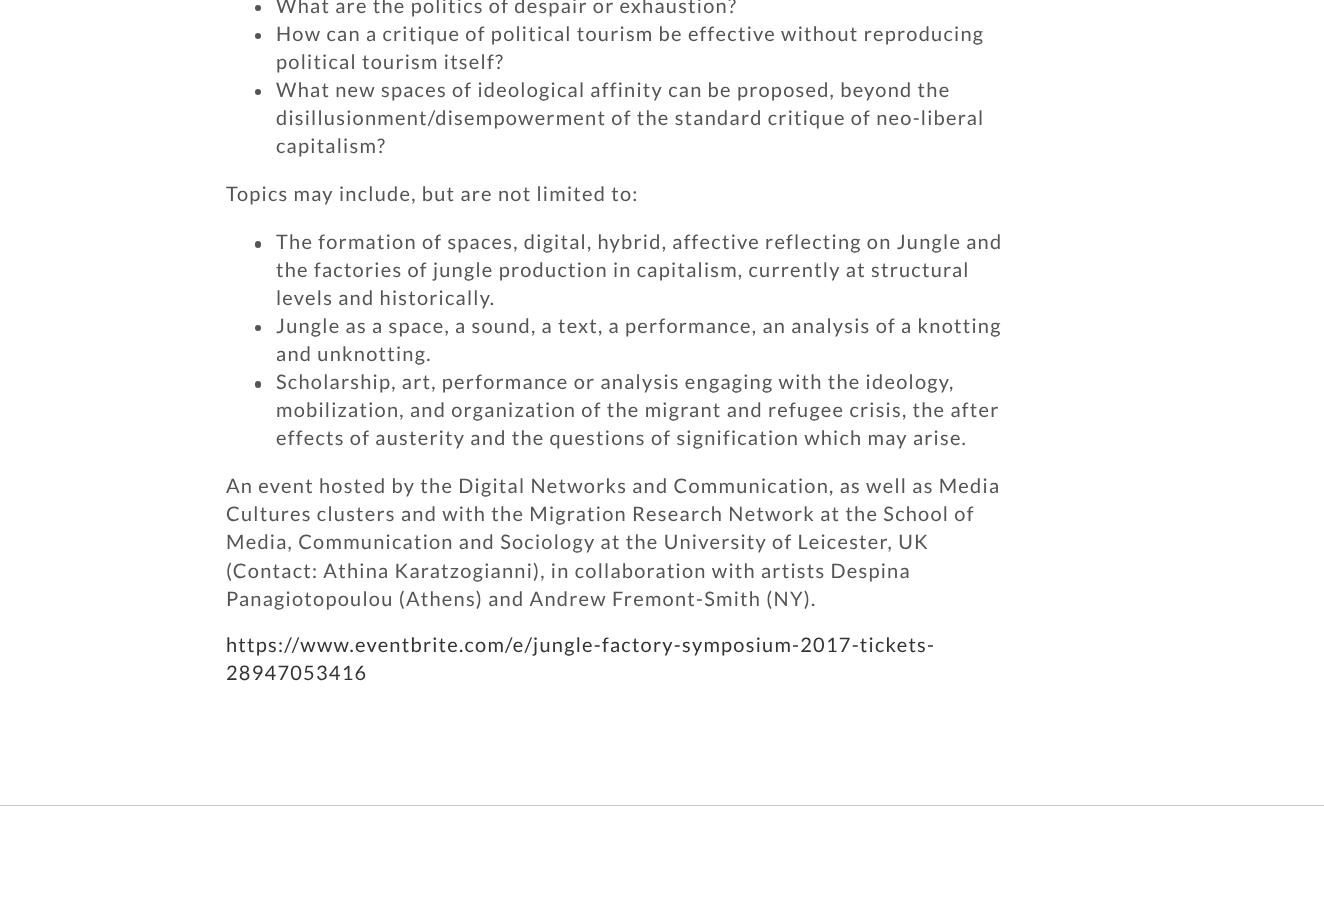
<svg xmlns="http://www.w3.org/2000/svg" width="1324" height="912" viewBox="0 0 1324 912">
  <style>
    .t1 { font: 20px Lato; letter-spacing: 1.25px; fill: #555; }
    .t2 { font: 20px Lato; letter-spacing: 1.25px; fill: #333; }
  </style>
  <rect width="100%" height="100%" fill="#fff"/>
  <circle cx="258" cy="8" r="3" fill="#555"/>
  <text x="276" y="13" class="t1">What are the politics of despair or exhaustion?</text>
  <circle cx="258" cy="36" r="3" fill="#555"/>
  <text x="276" y="41" class="t1">How can a critique of political tourism be effective without reproducing</text>
  <text x="276" y="69" class="t1">political tourism itself?</text>
  <circle cx="258" cy="92" r="3" fill="#555"/>
  <text x="276" y="97" class="t1">What new spaces of ideological affinity can be proposed, beyond the</text>
  <text x="276" y="125" class="t1">disillusionment/disempowerment of the standard critique of neo-liberal</text>
  <text x="276" y="153" class="t1">capitalism?</text>
  <text x="226" y="201" class="t1">Topics may include, but are not limited to:</text>
  <rect x="255" y="241" width="6" height="7" rx="3" fill="#555"/>
  <text x="276" y="249" class="t1">The formation of spaces, digital, hybrid, affective reflecting on Jungle and</text>
  <text x="276" y="277" class="t1">the factories of jungle production in capitalism, currently at structural</text>
  <text x="276" y="305" class="t1">levels and historically.</text>
  <circle cx="258" cy="328" r="3" fill="#555"/>
  <text x="276" y="333" class="t1">Jungle as a space, a sound, a text, a performance, an analysis of a knotting</text>
  <text x="276" y="361" class="t1">and unknotting.</text>
  <rect x="255" y="381" width="6" height="7" rx="3" fill="#555"/>
  <text x="276" y="389" class="t1">Scholarship, art, performance or analysis engaging with the ideology,</text>
  <text x="276" y="417" class="t1">mobilization, and organization of the migrant and refugee crisis, the after</text>
  <text x="276" y="445" class="t1">effects of austerity and the questions of signification which may arise.</text>
  <text x="226" y="493" class="t1">An event hosted by the Digital Networks and Communication, as well as Media</text>
  <text x="226" y="521" class="t1">Cultures clusters and with the Migration Research Network at the School of</text>
  <text x="226" y="549" class="t1">Media, Communication and Sociology at the University of Leicester, UK</text>
  <text x="226" y="578" class="t1">(Contact: Athina Karatzogianni), in collaboration with artists Despina</text>
  <text x="226" y="606" class="t1">Panagiotopoulou (Athens) and Andrew Fremont-Smith (NY).</text>
  <text x="226" y="652" class="t2">https://www.eventbrite.com/e/jungle-factory-symposium-2017-tickets-</text>
  <text x="226" y="680" class="t2">28947053416</text>
  <rect x="0" y="805" width="1324" height="1" fill="#ccc"/>
</svg>
